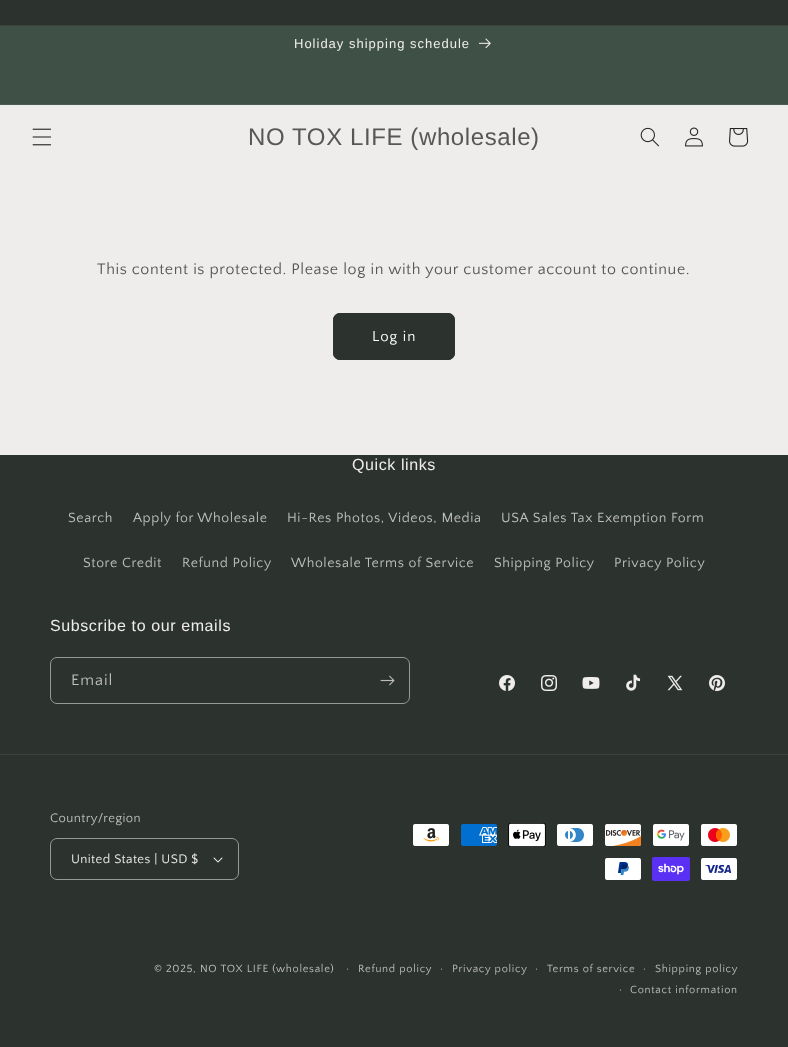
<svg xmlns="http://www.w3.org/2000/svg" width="788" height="1047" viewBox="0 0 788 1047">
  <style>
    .t1 { font: 13px Arimo; letter-spacing: 1px; fill: #efecec; }
    .t2 { font: 24px Arimo; letter-spacing: 0.6px; fill: #585757; }
    .t3 { font: 16px Quattrocento Sans; letter-spacing: 0.6px; fill: #585757; }
    .t4 { font: 15px Quattrocento Sans; letter-spacing: 1px; fill: #fff; }
    .t5 { font: 16px Arimo; letter-spacing: 0.6px; fill: #efecec; }
    .t6 { font: 14px Quattrocento Sans; letter-spacing: 0.6px; fill: #bebebd; }
    .t7 { font: 16px Quattrocento Sans; letter-spacing: 1px; fill: #bebebd; }
    .t8 { font: 13px Quattrocento Sans; letter-spacing: 0.4px; fill: #bebebd; }
    .t9 { font: 13px Quattrocento Sans; letter-spacing: 0.4px; fill: #efecec; }
    .t10 { font: 11px Quattrocento Sans; letter-spacing: 0.7px; fill: #bebebd; }
    .t11 { font: 12px Quattrocento Sans; letter-spacing: 0.7px; fill: #bebebd; }
  </style>
  <rect width="100%" height="100%" fill="#efecec"/>
  <rect x="0" y="0" width="788" height="25" fill="#2c332f"/>
  <rect x="0" y="25" width="788" height="1" fill="#3c423e"/>
  <rect x="0" y="26" width="788" height="78" fill="#3f5147"/>
  <rect x="0" y="104" width="788" height="1" fill="#4d5d54"/>
  <text x="294" y="48" class="t1">Holiday shipping schedule</text>
  <image x="479" y="38" width="12" height="11" href="images/1.png"/>
  <image x="32" y="128" width="20" height="18" href="images/2.png"/>
  <text x="248" y="145" class="t2">NO TOX LIFE (wholesale)</text>
  <image x="640" y="127" width="19" height="20" href="images/3.png"/>
  <image x="685" y="127" width="18" height="20" href="images/4.png"/>
  <image x="729" y="128" width="20" height="19" href="images/5.png"/>
  <text x="97" y="274" class="t3">This content is protected. Please log in with your customer account to continue.</text>
  <rect x="333" y="313" width="122" height="47" rx="7" fill="#2c332f"/>
  <rect x="333.5" y="313.5" width="121" height="46" rx="6.5" fill="none" stroke="#2c332f"/>
  <text x="372" y="341" class="t4">Log in</text>
  <rect x="0" y="455" width="788" height="592" fill="#2c332f"/>
  <text x="352" y="470" class="t5">Quick links</text>
  <text x="68" y="522" class="t6">Search</text>
  <text x="133" y="522" class="t6">Apply for Wholesale</text>
  <text x="287" y="522" class="t6">Hi-Res Photos, Videos, Media</text>
  <text x="501" y="522" class="t6">USA Sales Tax Exemption Form</text>
  <text x="83" y="567" class="t6">Store Credit</text>
  <text x="182" y="567" class="t6">Refund Policy</text>
  <text x="291" y="567" class="t6">Wholesale Terms of Service</text>
  <text x="494" y="567" class="t6">Shipping Policy</text>
  <text x="614" y="567" class="t6">Privacy Policy</text>
  <text x="50" y="631" class="t5">Subscribe to our emails</text>
  <rect x="50.5" y="657.5" width="359" height="46" rx="6.5" fill="none" stroke="#979997"/>
  <text x="71" y="685" class="t7">Email</text>
  <image x="380" y="675" width="15" height="11" href="images/6.png"/>
  <image x="499" y="675" width="16" height="16" href="images/7.png"/>
  <image x="541" y="675" width="16" height="16" href="images/8.png"/>
  <image x="582" y="677" width="18" height="12" href="images/9.png"/>
  <image x="626" y="674" width="15" height="17" href="images/10.png"/>
  <image x="667" y="675" width="16" height="16" href="images/11.png"/>
  <image x="709" y="675" width="16" height="16" href="images/12.png"/>
  <rect x="0" y="754" width="788" height="1" fill="#3c423e"/>
  <text x="50" y="822" class="t8">Country/region</text>
  <image x="213" y="857" width="10" height="6" href="images/13.png"/>
  <rect x="50.5" y="838.5" width="188" height="41" rx="6.5" fill="none" stroke="#979997"/>
  <text x="71" y="863" class="t9">United States | USD $</text>
  <image x="413" y="824" width="36" height="22" href="images/14.png"/>
  <image x="461" y="824" width="36" height="22" href="images/15.png"/>
  <image x="508" y="823" width="38" height="24" href="images/16.png"/>
  <image x="557" y="824" width="36" height="22" href="images/17.png"/>
  <image x="605" y="824" width="36" height="22" href="images/18.png"/>
  <image x="653" y="824" width="36" height="22" href="images/19.png"/>
  <image x="701" y="824" width="36" height="22" href="images/20.png"/>
  <image x="605" y="858" width="36" height="22" href="images/21.png"/>
  <image x="652" y="857" width="38" height="24" href="images/22.png"/>
  <image x="701" y="858" width="36" height="22" href="images/23.png"/>
  <text x="154" y="972" class="t10">© 2025, NO TOX LIFE (wholesale)</text>
  <text x="346" y="972" class="t11">·</text>
  <text x="358" y="972" class="t10">Refund policy</text>
  <text x="440" y="972" class="t11">·</text>
  <text x="452" y="972" class="t10">Privacy policy</text>
  <text x="535" y="972" class="t11">·</text>
  <text x="547" y="972" class="t10">Terms of service</text>
  <text x="643" y="972" class="t11">·</text>
  <text x="655" y="972" class="t10">Shipping policy</text>
  <text x="619" y="993" class="t11">·</text>
  <text x="630" y="993" class="t10">Contact information</text>
</svg>
